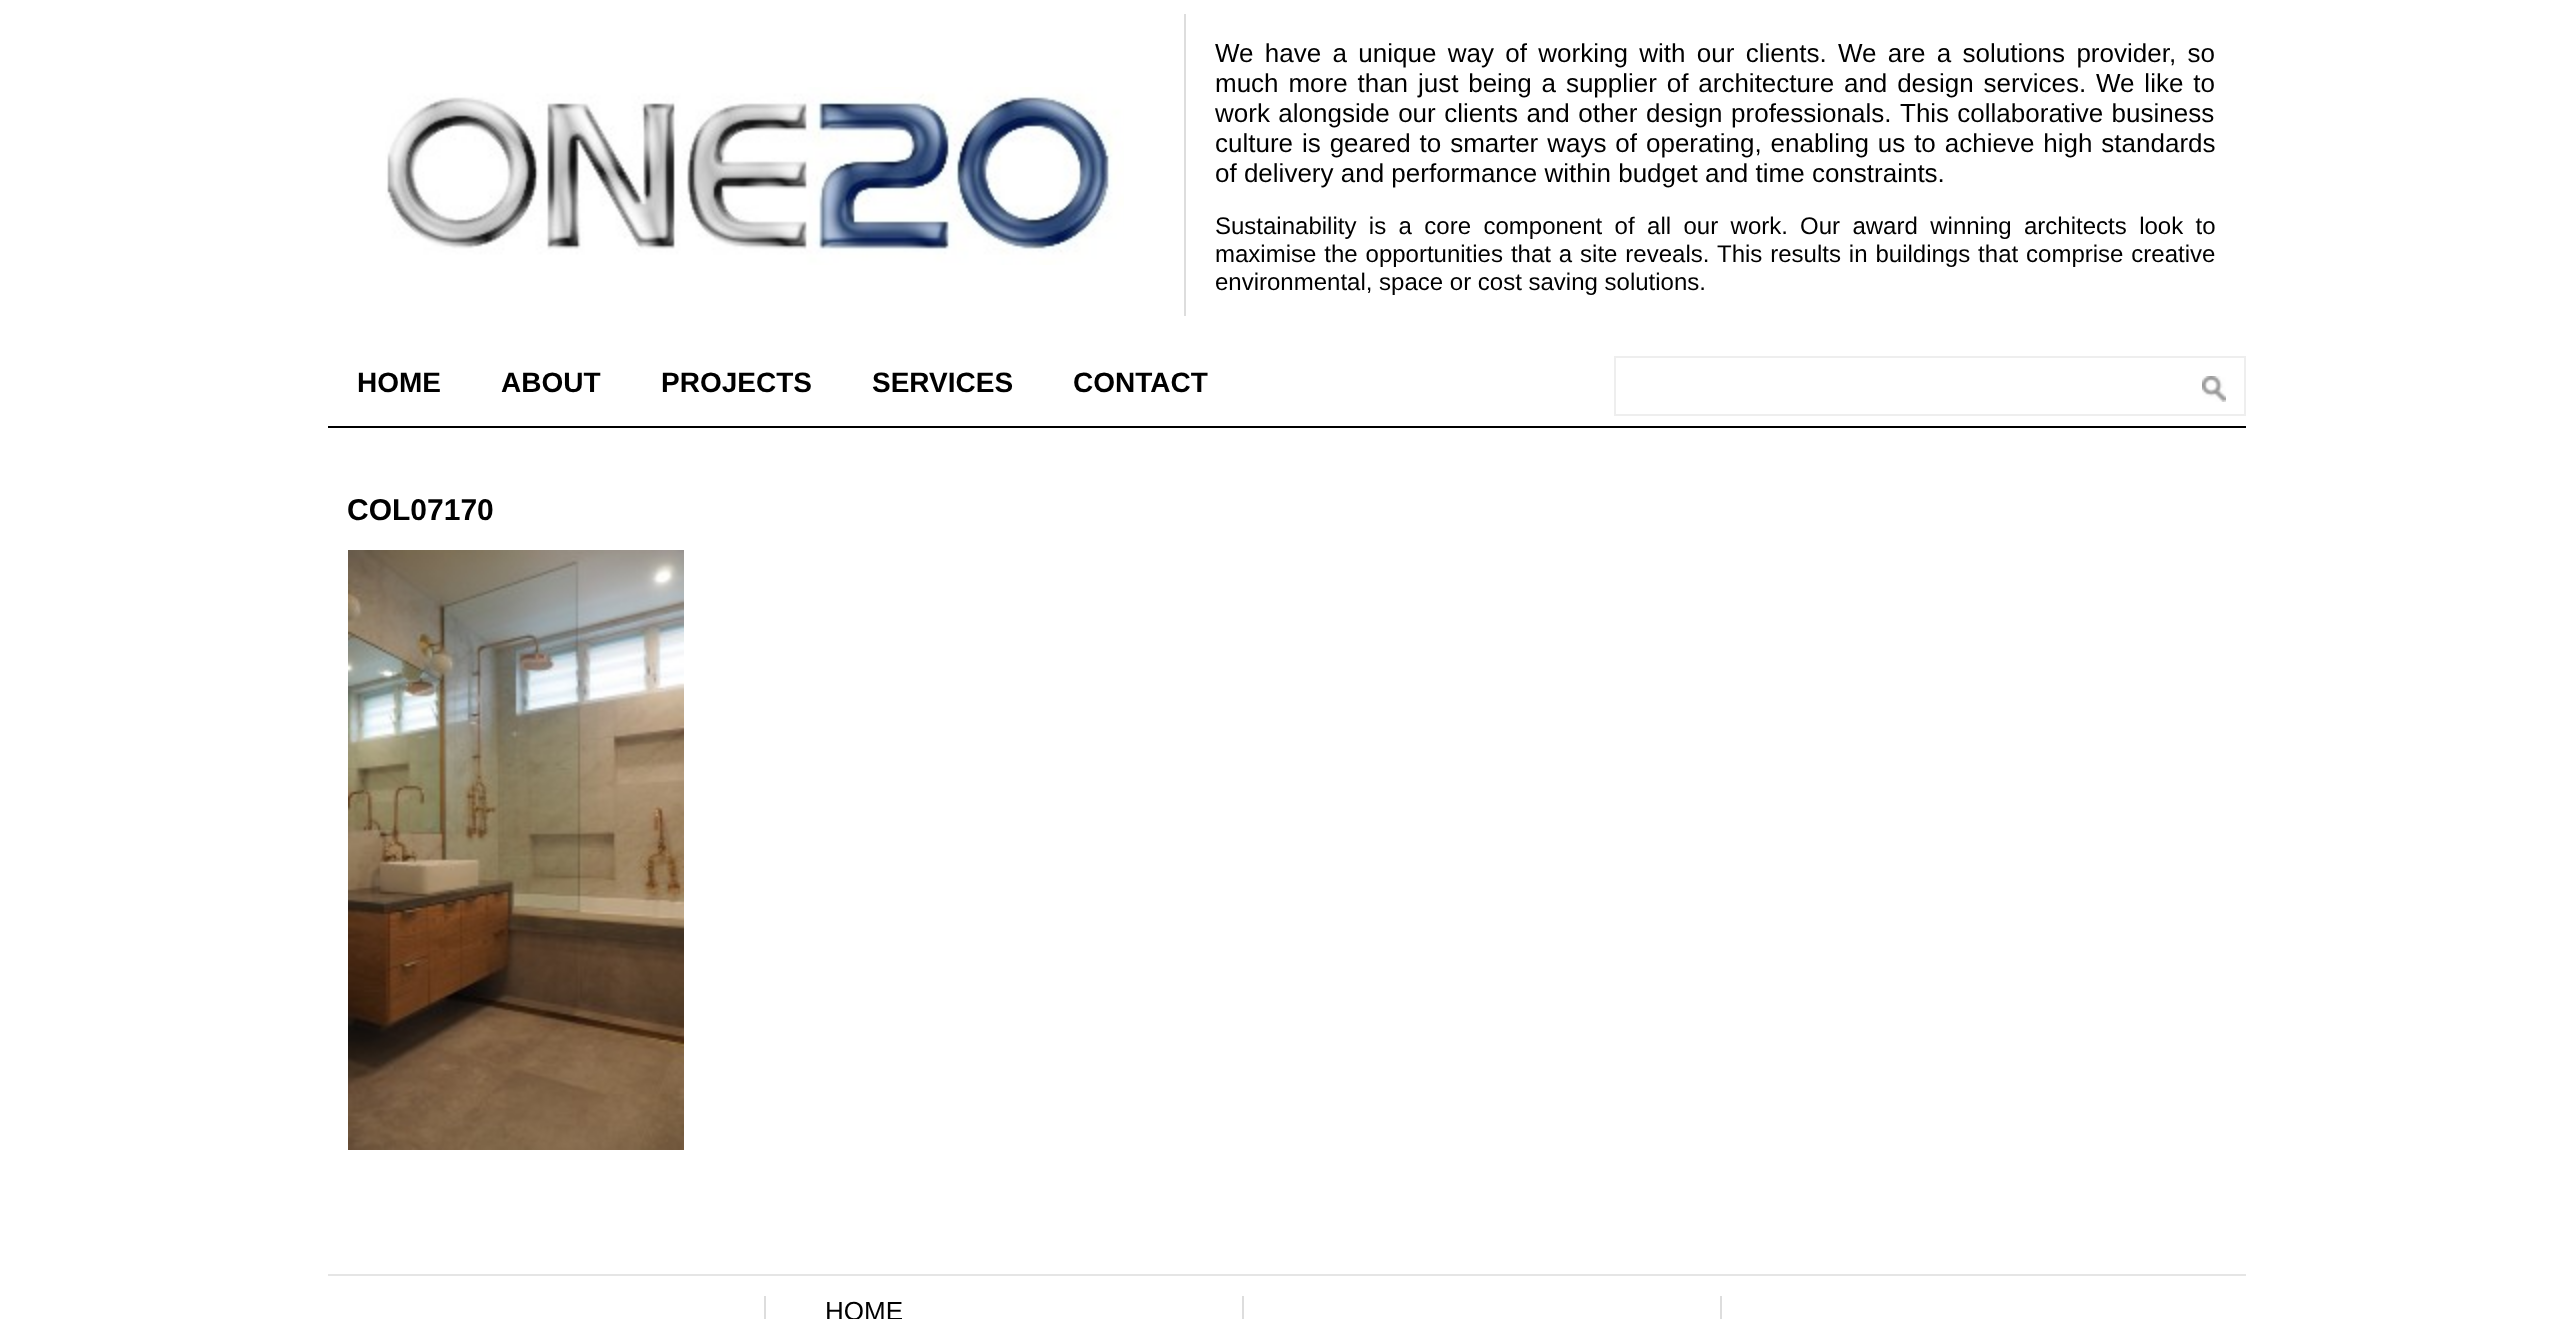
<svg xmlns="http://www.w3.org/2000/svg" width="2572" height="1319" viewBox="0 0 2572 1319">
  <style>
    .t1 { font: 26px Liberation Sans; fill: #000; }
    .t2 { font: 24px Liberation Sans; fill: #000; }
    .t3 { font: bold 28px Liberation Sans; fill: #000; }
    .t4 { font: bold 30px Liberation Sans; fill: #000; }
  </style>
  <rect width="100%" height="100%" fill="#fff"/>
  <image x="385" y="87" width="739" height="178" href="images/1.png"/>
  <rect x="1184" y="14" width="2" height="302" fill="#ddd"/>
  <text x="1215" y="62" word-spacing="4.1" class="t1">We have a unique way of working with our clients. We are a solutions provider, so</text>
  <text x="1215" y="92" word-spacing="2.6" class="t1">much more than just being a supplier of architecture and design services.</text>
  <text x="2096" y="92" word-spacing="2.6" class="t1">We like to</text>
  <text x="1215" y="122" word-spacing="1.25" class="t1">work alongside our clients and other design professionals.</text>
  <text x="1900" y="122" word-spacing="1" class="t1">This collaborative business</text>
  <text x="1215" y="152" word-spacing="1.7" class="t1">culture is geared to smarter ways of operating, enabling us to achieve high standards</text>
  <text x="1215" y="182" class="t1">of delivery and performance within budget and time constraints.</text>
  <text x="1215" y="234" word-spacing="5.75" class="t2">Sustainability is a core component of all our work.</text>
  <text x="1800" y="234" word-spacing="5.75" class="t2">Our award winning architects look to</text>
  <text x="1215" y="262" word-spacing="1.25" class="t2">maximise the opportunities that a site reveals.</text>
  <text x="1717" y="262" word-spacing="1.25" class="t2">This results in buildings that comprise creative</text>
  <text x="1215" y="290" class="t2">environmental, space or cost saving solutions.</text>
  <rect x="328" y="426" width="1918" height="2" fill="#000"/>
  <text x="357" y="392" class="t3">HOME</text>
  <text x="501" y="392" class="t3">ABOUT</text>
  <text x="661" y="392" class="t3">PROJECTS</text>
  <text x="872" y="392" class="t3">SERVICES</text>
  <text x="1073" y="392" class="t3">CONTACT</text>
  <rect x="1615" y="357" width="630" height="58" fill="none" stroke="#eee" stroke-width="2"/>
  <image x="2202" y="376" width="24" height="26" href="images/2.png"/>
  <text x="347" y="520" class="t4">COL07170</text>
  <image x="348" y="550" width="336" height="600" href="images/3.png"/>
  <rect x="328" y="1274" width="1918" height="2" fill="#e5e5e5"/>
  <rect x="764" y="1296" width="2" height="23" fill="#ddd"/>
  <rect x="1242" y="1296" width="2" height="23" fill="#ddd"/>
  <text x="825" y="1320" class="t1">HOME</text>
  <rect x="1720" y="1296" width="2" height="23" fill="#ddd"/>
</svg>
